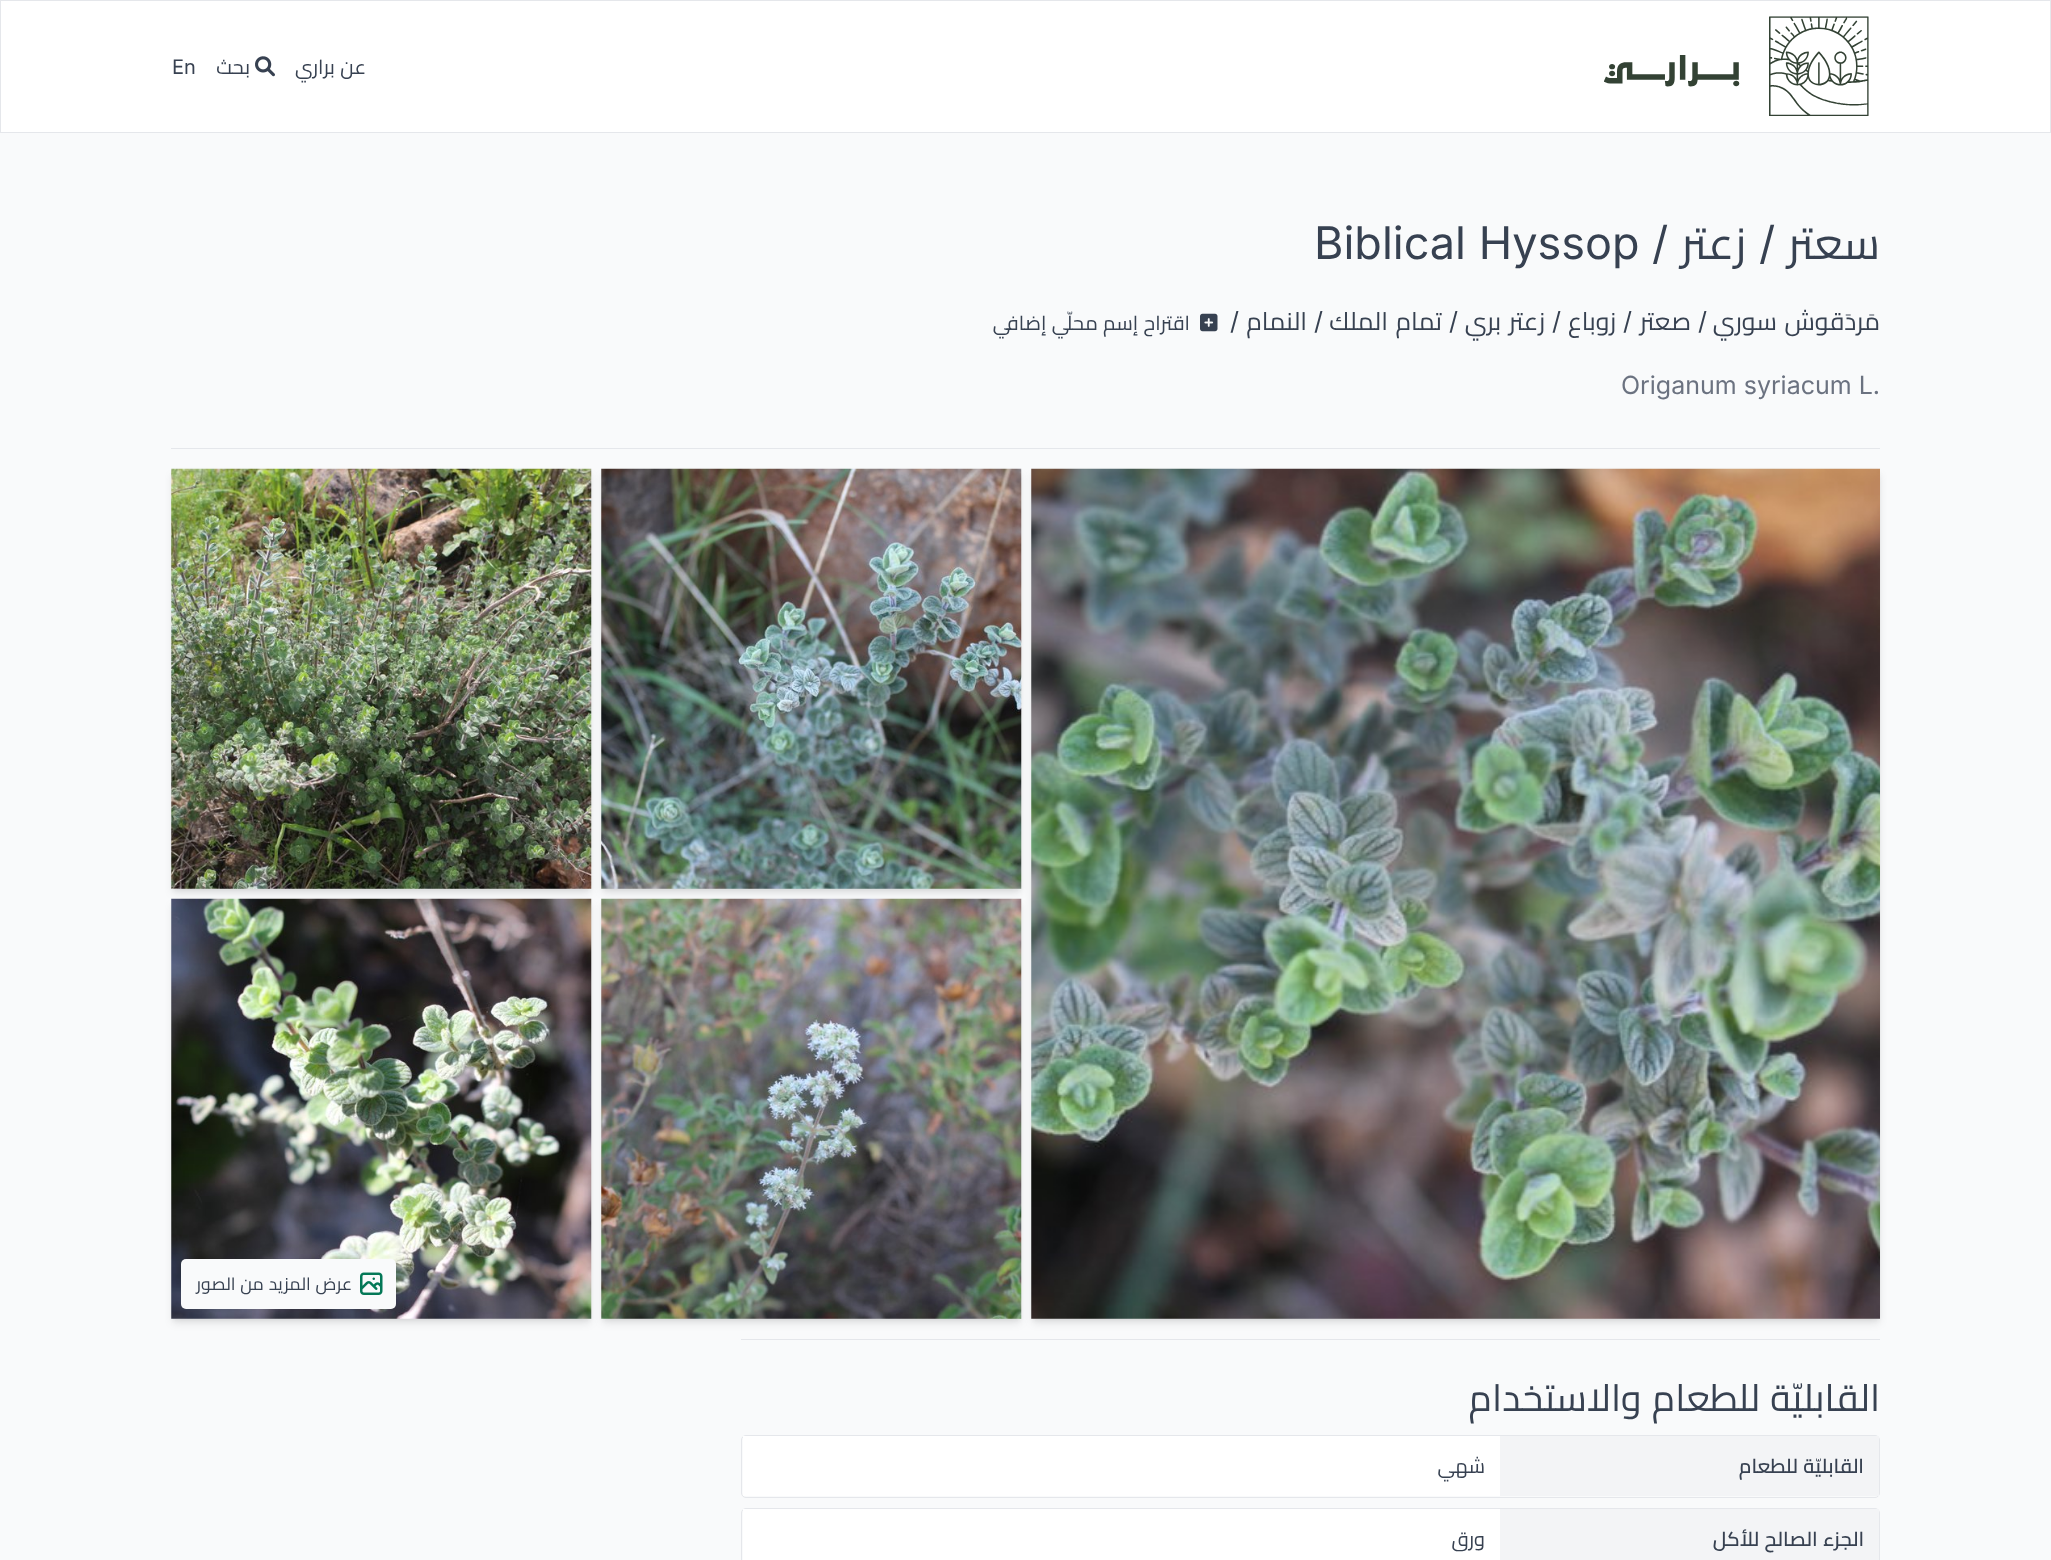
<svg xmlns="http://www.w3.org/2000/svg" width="2051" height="1560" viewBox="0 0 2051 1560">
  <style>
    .t1 { font: 20px Cairo; direction: rtl; fill: #374151; }
    .t2 { font: 20px Inter; fill: #374151; }
    .t3 { font: 45px Cairo; direction: rtl; fill: #374151; }
    .t4 { font: 45px Inter; fill: #374151; }
    .t5 { font: 25px Cairo; direction: rtl; fill: #374151; }
    .t6 { font: 25px Inter; fill: #374151; }
    .t7 { font: 25px Inter; fill: #6b7280; }
    .t8 { font: 17.5px Cairo; direction: rtl; fill: #374151; }
    .t9 { font: 37.5px Cairo; direction: rtl; fill: #374151; }
    .t10 { font: 600 20px Cairo; direction: rtl; fill: #374151; }
  </style>
  <rect width="100%" height="100%" fill="#f9fafb"/>
  <rect x="0.5" y="0.5" width="2050" height="132" fill="#fff" stroke="#e5e7eb"/>
  <image x="1604" y="16" width="265" height="100" href="images/1.png"/>
  <text x="366" y="74" word-spacing="1" class="t1">عن براري</text>
  <image x="255" y="56" width="20" height="21" href="images/2.png"/>
  <text x="250" y="74" class="t1">بحث</text>
  <text x="172" y="74" class="t2">En</text>
  <text x="1880" y="259" class="t3">سعتر</text>
  <text x="1759" y="259" class="t4">/</text>
  <text x="1746" y="259" class="t3">زعتر</text>
  <text x="1652" y="259" class="t4">/</text>
  <text x="1314" y="259" class="t4">Biblical Hyssop</text>
  <text x="1880" y="330" word-spacing="2" class="t5">مَردَقوش سوري</text>
  <text x="1698" y="330" class="t6">/</text>
  <text x="1691" y="330" class="t5">صعتر</text>
  <text x="1623" y="330" class="t6">/</text>
  <text x="1616" y="330" class="t5">زوباع</text>
  <text x="1552" y="330" class="t6">/</text>
  <text x="1545" y="330" word-spacing="2" class="t5">زعتر بري</text>
  <text x="1449" y="330" class="t6">/</text>
  <text x="1442" y="330" word-spacing="2" class="t5">تمام الملك</text>
  <text x="1314" y="330" class="t6">/</text>
  <text x="1307" y="330" class="t5">النمام</text>
  <text x="1230" y="330" class="t6">/</text>
  <image x="1200" y="313" width="18" height="19" href="images/3.png"/>
  <text x="1190" y="330" word-spacing="1" class="t1">اقتراح إسم محلّي إضافي</text>
  <text x="1621" y="394" class="t7">Origanum syriacum L.</text>
  <rect x="171" y="448" width="1709" height="1" fill="#e5e7eb"/>
  <rect x="1033" y="473" width="846" height="847" fill="#0000000f" filter="blur(2.5px)"/>
  <rect x="1033" y="475" width="846" height="848" fill="#0000001a" filter="blur(4px)"/>
  <image x="1031" y="468" width="849" height="851" href="images/4.png"/>
  <rect x="603" y="473" width="417" height="417" fill="#0000000f" filter="blur(2.5px)"/>
  <rect x="603" y="475" width="417" height="418" fill="#0000001a" filter="blur(4px)"/>
  <image x="601" y="468" width="421" height="421" href="images/5.png"/>
  <rect x="173" y="473" width="417" height="417" fill="#0000000f" filter="blur(2.5px)"/>
  <rect x="173" y="475" width="417" height="418" fill="#0000001a" filter="blur(4px)"/>
  <image x="171" y="468" width="421" height="421" href="images/6.png"/>
  <rect x="603" y="903" width="417" height="417" fill="#0000000f" filter="blur(2.5px)"/>
  <rect x="603" y="905" width="417" height="418" fill="#0000001a" filter="blur(4px)"/>
  <image x="601" y="898" width="421" height="421" href="images/7.png"/>
  <rect x="173" y="903" width="417" height="417" fill="#0000000f" filter="blur(2.5px)"/>
  <rect x="173" y="905" width="417" height="418" fill="#0000001a" filter="blur(4px)"/>
  <image x="171" y="898" width="421" height="421" href="images/8.png"/>
  <rect x="181" y="1259" width="215" height="50" rx="5" fill="#f9fafb"/>
  <image x="360" y="1272" width="23" height="23" href="images/9.png"/>
  <text x="352" y="1290" word-spacing="1" class="t8">عرض المزيد من الصور</text>
  <rect x="741" y="1339" width="1139" height="1" fill="#e5e7eb"/>
  <text x="1880" y="1411" word-spacing="2" class="t9">القابليّة للطعام والاستخدام</text>
  <rect x="741.5" y="1435.5" width="1138" height="62" rx="4.5" fill="none" stroke="#e5e7eb"/>
  <rect x="1500" y="1436" width="379" height="60" fill="#f3f4f6"/>
  <text x="1864" y="1473" word-spacing="1" class="t10">القابليّة للطعام</text>
  <rect x="743" y="1436" width="757" height="60" fill="#fff"/>
  <text x="1485" y="1473" class="t1">شهي</text>
  <rect x="741.5" y="1508.5" width="1138" height="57" rx="4.5" fill="none" stroke="#e5e7eb"/>
  <rect x="1500" y="1509" width="379" height="51" fill="#f3f4f6"/>
  <text x="1864" y="1546" word-spacing="1" class="t10">الجزء الصالح للأكل</text>
  <rect x="743" y="1509" width="757" height="51" fill="#fff"/>
  <text x="1485" y="1546" class="t1">ورق</text>
</svg>
